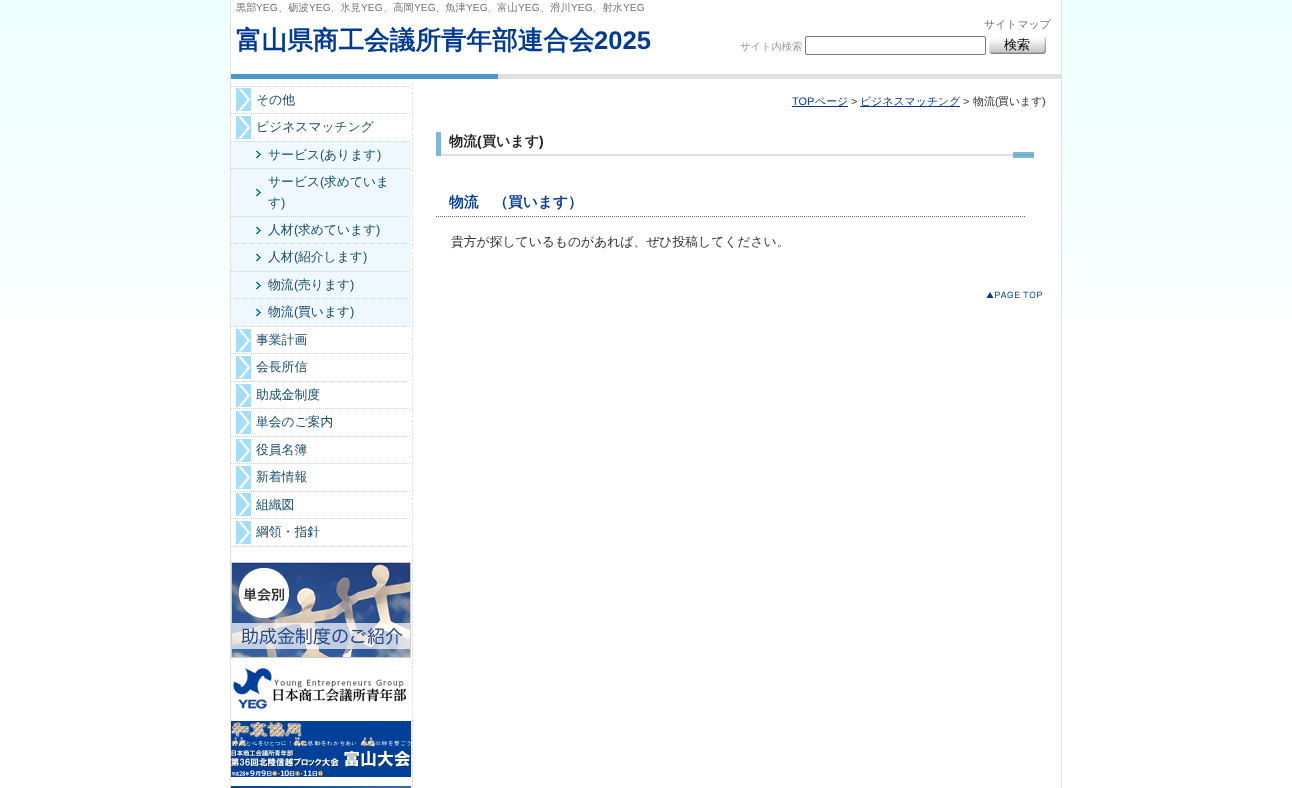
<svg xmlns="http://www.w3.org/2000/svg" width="1292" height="788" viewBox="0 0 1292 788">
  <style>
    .t1 { font: 500 10.25px WenQuanYi Zen Hei; fill: #737373; }
    .t2 { font: 10.25px Liberation Sans; fill: #737373; }
    .t3 { font: bold 25.6px WenQuanYi Zen Hei; fill: #003a91; }
    .t4 { font: bold 25.6px Liberation Sans; fill: #003a91; }
    .t5 { font: 500 10.9px WenQuanYi Zen Hei; fill: #737373; }
    .t6 { font: 500 10.25px WenQuanYi Zen Hei; fill: #999; }
    .t7 { font: 500 13px WenQuanYi Zen Hei; fill: #000; }
    .t8 { font: 500 12.8px WenQuanYi Zen Hei; fill: #1b4c69; }
    .t9 { font: 12.8px Liberation Sans; fill: #1b4c69; }
    .t10 { font: 10.9px Liberation Sans; fill: #003a91; }
    .t11 { font: 500 10.9px WenQuanYi Zen Hei; fill: #003a91; }
    .t12 { font: 10.9px Liberation Sans; fill: #303030; }
    .t13 { font: 500 10.9px WenQuanYi Zen Hei; fill: #303030; }
    .t14 { font: bold 14px WenQuanYi Zen Hei; fill: #212121; }
    .t15 { font: bold 14px Liberation Sans; fill: #212121; }
    .t16 { font: bold 14.75px WenQuanYi Zen Hei; fill: #003a91; }
    .t17 { font: 500 12.8px WenQuanYi Zen Hei; fill: #303030; }
  </style>
  <rect width="100%" height="100%" fill="#fff"/>
  <image x="0" y="0" width="1292" height="316" href="images/1.png"/>
  <image x="231" y="81" width="830" height="706" href="images/2.png"/>
  <rect x="1061" y="0" width="1" height="788" fill="#e2e2e2"/>
  <rect x="230" y="0" width="1" height="788" fill="#e2e2e2"/>
  <rect x="231" y="0" width="830" height="81" fill="#fff"/>
  <text x="236" y="11" class="t1">黒部</text>
  <text x="256" y="11" class="t2">YEG</text>
  <text x="278" y="11" class="t1">、砺波</text>
  <text x="309" y="11" class="t2">YEG</text>
  <text x="330" y="11" class="t1">、氷見</text>
  <text x="361" y="11" class="t2">YEG</text>
  <text x="383" y="11" class="t1">、高岡</text>
  <text x="414" y="11" class="t2">YEG</text>
  <text x="435" y="11" class="t1">、魚津</text>
  <text x="466" y="11" class="t2">YEG</text>
  <text x="487" y="11" class="t1">、富山</text>
  <text x="518" y="11" class="t2">YEG</text>
  <text x="540" y="11" class="t1">、滑川</text>
  <text x="571" y="11" class="t2">YEG</text>
  <text x="592" y="11" class="t1">、射水</text>
  <text x="623" y="11" class="t2">YEG</text>
  <image x="231" y="74" width="830" height="6" href="images/3.png"/>
  <text x="236" y="49" class="t3">富山県商工会議所青年部連合会</text>
  <text x="594" y="49" class="t4">2025</text>
  <text x="984" y="28" class="t5">サイトマップ</text>
  <text x="740" y="50" class="t6">サイト内検索</text>
  <rect x="805.5" y="36.5" width="180" height="18" rx="1.5" fill="none" stroke="#767676"/>
  <image x="989" y="37" width="57" height="17" href="images/4.png"/>
  <text x="1004" y="49" class="t7">検索</text>
  <path d="M231 546.5H411" fill="none" stroke="#cfcfcf" stroke-dasharray="1 1"/>
  <image x="236" y="88" width="15" height="23" href="images/5.png"/>
  <path d="M231 86.5H411" fill="none" stroke="#cfcfcf" stroke-dasharray="1 1"/>
  <text x="256" y="104" class="t8">その他</text>
  <image x="236" y="116" width="15" height="23" href="images/5.png"/>
  <path d="M231 113.5H411" fill="none" stroke="#cfcfcf" stroke-dasharray="1 1"/>
  <text x="256" y="131" class="t8">ビジネスマッチング</text>
  <rect x="231" y="141" width="180" height="185" fill="#eff8ff"/>
  <image x="256" y="151" width="5" height="7" href="images/6.png"/>
  <path d="M231 141.5H411" fill="none" stroke="#cfcfcf" stroke-dasharray="1 1"/>
  <text x="268" y="159" class="t8">サービス</text>
  <text x="320" y="159" class="t9">(</text>
  <text x="324" y="159" class="t8">あります</text>
  <text x="377" y="159" class="t9">)</text>
  <image x="256" y="189" width="5" height="7" href="images/6.png"/>
  <path d="M231 168.5H411" fill="none" stroke="#cfcfcf" stroke-dasharray="1 1"/>
  <text x="268" y="186" class="t8">サービス</text>
  <text x="320" y="186" class="t9">(</text>
  <text x="324" y="186" class="t8">求めていま</text>
  <text x="268" y="207" class="t8">す</text>
  <text x="281" y="207" class="t9">)</text>
  <image x="256" y="227" width="5" height="7" href="images/6.png"/>
  <path d="M231 216.5H411" fill="none" stroke="#cfcfcf" stroke-dasharray="1 1"/>
  <text x="268" y="234" class="t8">人材</text>
  <text x="294" y="234" class="t9">(</text>
  <text x="298" y="234" class="t8">求めています</text>
  <text x="376" y="234" class="t9">)</text>
  <image x="256" y="254" width="5" height="7" href="images/6.png"/>
  <path d="M231 243.5H411" fill="none" stroke="#cfcfcf" stroke-dasharray="1 1"/>
  <text x="268" y="261" class="t8">人材</text>
  <text x="294" y="261" class="t9">(</text>
  <text x="298" y="261" class="t8">紹介します</text>
  <text x="363" y="261" class="t9">)</text>
  <image x="256" y="282" width="5" height="7" href="images/6.png"/>
  <path d="M231 271.5H411" fill="none" stroke="#cfcfcf" stroke-dasharray="1 1"/>
  <text x="268" y="289" class="t8">物流</text>
  <text x="294" y="289" class="t9">(</text>
  <text x="298" y="289" class="t8">売ります</text>
  <text x="350" y="289" class="t9">)</text>
  <image x="256" y="309" width="5" height="7" href="images/6.png"/>
  <path d="M231 298.5H411" fill="none" stroke="#cfcfcf" stroke-dasharray="1 1"/>
  <text x="268" y="316" class="t8">物流</text>
  <text x="294" y="316" class="t9">(</text>
  <text x="298" y="316" class="t8">買います</text>
  <text x="350" y="316" class="t9">)</text>
  <image x="236" y="329" width="15" height="23" href="images/5.png"/>
  <path d="M231 326.5H411" fill="none" stroke="#cfcfcf" stroke-dasharray="1 1"/>
  <text x="256" y="344" class="t8">事業計画</text>
  <image x="236" y="356" width="15" height="23" href="images/5.png"/>
  <path d="M231 353.5H411" fill="none" stroke="#cfcfcf" stroke-dasharray="1 1"/>
  <text x="256" y="371" class="t8">会長所信</text>
  <image x="236" y="384" width="15" height="23" href="images/5.png"/>
  <path d="M231 381.5H411" fill="none" stroke="#cfcfcf" stroke-dasharray="1 1"/>
  <text x="256" y="399" class="t8">助成金制度</text>
  <image x="236" y="411" width="15" height="23" href="images/5.png"/>
  <path d="M231 408.5H411" fill="none" stroke="#cfcfcf" stroke-dasharray="1 1"/>
  <text x="256" y="426" class="t8">単会のご案内</text>
  <image x="236" y="439" width="15" height="23" href="images/5.png"/>
  <path d="M231 436.5H411" fill="none" stroke="#cfcfcf" stroke-dasharray="1 1"/>
  <text x="256" y="454" class="t8">役員名簿</text>
  <image x="236" y="466" width="15" height="23" href="images/5.png"/>
  <path d="M231 463.5H411" fill="none" stroke="#cfcfcf" stroke-dasharray="1 1"/>
  <text x="256" y="481" class="t8">新着情報</text>
  <image x="236" y="493" width="15" height="23" href="images/5.png"/>
  <path d="M231 491.5H411" fill="none" stroke="#cfcfcf" stroke-dasharray="1 1"/>
  <text x="256" y="509" class="t8">組織図</text>
  <image x="236" y="521" width="15" height="23" href="images/5.png"/>
  <path d="M231 518.5H411" fill="none" stroke="#cfcfcf" stroke-dasharray="1 1"/>
  <text x="256" y="536" class="t8">綱領・指針</text>
  <image x="231" y="562" width="180" height="96" href="images/7.png"/>
  <image x="233" y="668" width="174" height="41" href="images/8.png"/>
  <image x="231" y="721" width="180" height="56" href="images/9.png"/>
  <image x="231" y="786" width="180" height="2" href="images/10.png"/>
  <text x="792" y="105" class="t10">TOP</text>
  <rect x="792" y="106" width="56" height="1" fill="#003a91"/>
  <text x="815" y="105" class="t11">ページ</text>
  <text x="851" y="105" class="t12">&gt;</text>
  <rect x="860" y="106" width="100" height="1" fill="#003a91"/>
  <text x="860" y="105" class="t11">ビジネスマッチング</text>
  <text x="963" y="105" class="t12">&gt;</text>
  <text x="973" y="105" class="t13">物流</text>
  <text x="995" y="105" class="t12">(</text>
  <text x="998" y="105" class="t13">買います</text>
  <text x="1042" y="105" class="t12">)</text>
  <image x="436" y="132" width="598" height="26" href="images/11.png"/>
  <text x="449" y="146" class="t14">物流</text>
  <text x="477" y="146" class="t15">(</text>
  <text x="482" y="146" class="t14">買います</text>
  <text x="539" y="146" class="t15">)</text>
  <path d="M436 216.5H1026" fill="none" stroke="#666" stroke-dasharray="1 1"/>
  <text x="449" y="207" class="t16">物流　（買います）</text>
  <text x="451" y="246" class="t17">貴方が探しているものがあれば、ぜひ投稿してください。</text>
  <image x="986" y="291" width="56" height="7" href="images/12.png"/>
</svg>
